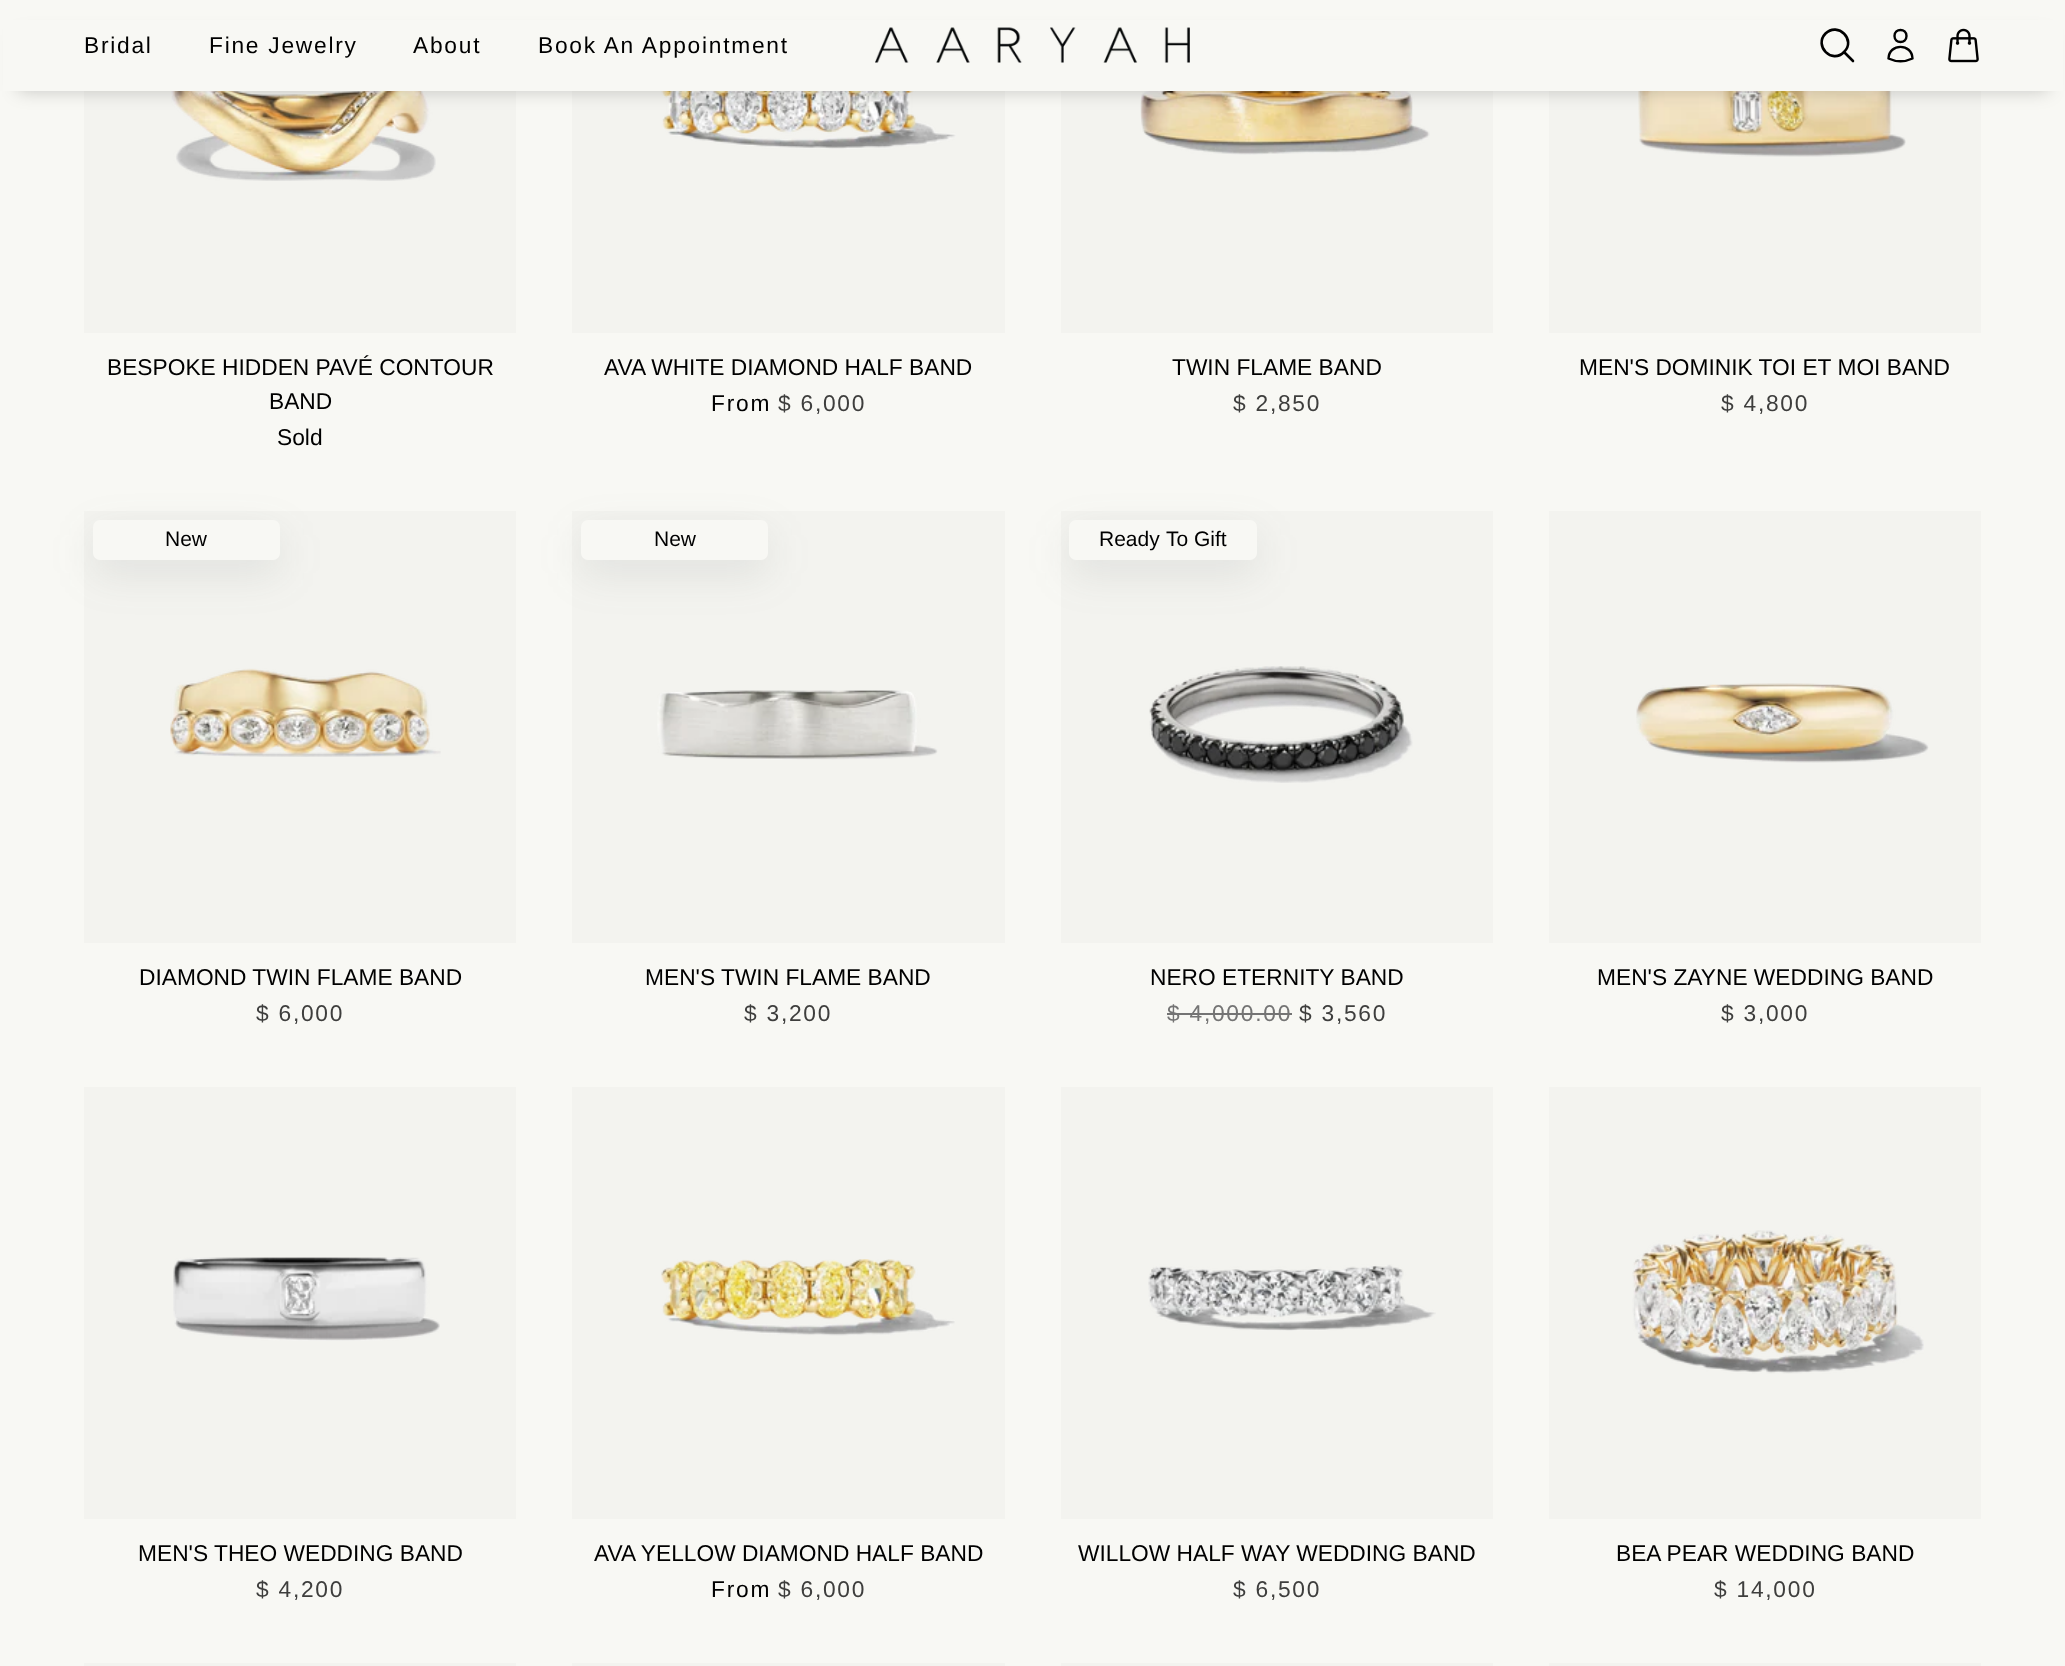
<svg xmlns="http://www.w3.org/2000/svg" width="2065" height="1666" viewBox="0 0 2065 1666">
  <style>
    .t1 { font: 22.75px Liberation Sans; letter-spacing: 1.75px; fill: #000; }
    .t2 { font: 22.75px Liberation Sans; fill: #000; }
    .t3 { font: 22.75px Liberation Sans; letter-spacing: 1.75px; fill: #3e3e3d; }
    .t4 { font: 21px Liberation Sans; fill: #000; }
    .t5 { font: 22.75px Liberation Sans; letter-spacing: 1.75px; fill: #747474; }
  </style>
  <rect width="100%" height="100%" fill="#f8f8f4"/>
  <rect x="84" y="91" width="432" height="242" fill="#f3f3ef"/>
  <image x="171" y="91" width="265" height="90" href="images/3.png"/>
  <rect x="572" y="91" width="433" height="242" fill="#f3f3ef"/>
  <image x="661" y="91" width="295" height="58" href="images/4.png"/>
  <rect x="1061" y="91" width="432" height="242" fill="#f3f3ef"/>
  <image x="1140" y="91" width="290" height="64" href="images/5.png"/>
  <rect x="1549" y="91" width="432" height="242" fill="#f3f3ef"/>
  <image x="1638" y="91" width="268" height="66" href="images/6.png"/>
  <rect x="18" y="35" width="2030" height="56" fill="#00000033" filter="blur(9px)"/>
  <rect x="3" y="20" width="2060" height="71" fill="#f8f8f4"/>
  <text x="84" y="53" class="t1">Bridal</text>
  <text x="209" y="53" class="t1">Fine Jewelry</text>
  <text x="413" y="53" class="t1">About</text>
  <text x="538" y="53" class="t1">Book An Appointment</text>
  <image x="875" y="27" width="315" height="36" href="images/1.png"/>
  <path d="M1853 61L1844 52M1844 52C1856.5 40 1838 21.5 1825.5 33.5C1813.5 46 1832 64.5 1844 52Z" fill="none" stroke="#000" stroke-width="2.6" stroke-linecap="round" stroke-linejoin="round"/>
  <path d="M1906.5 36C1906.5 44 1894.5 44 1894.5 36C1894.5 28 1906.5 28 1906.5 36ZM1888.5 58.5C1889 43 1912 43 1912.5 58.5C1905 62 1896 62 1888.5 58.5Z" fill="none" stroke="#000" stroke-width="2.4" stroke-linecap="round" stroke-linejoin="round"/>
  <image x="1948" y="28" width="31" height="35" href="images/2.png"/>
  <text x="107" y="375" class="t2">BESPOKE HIDDEN PAVÉ CONTOUR</text>
  <text x="269" y="409" class="t2">BAND</text>
  <text x="277" y="445" class="t2">Sold</text>
  <text x="604" y="375" class="t2">AVA WHITE DIAMOND HALF BAND</text>
  <text x="711" y="411" class="t1">From</text>
  <text x="778" y="411" class="t3">$ 6,000</text>
  <text x="1172" y="375" class="t2">TWIN FLAME BAND</text>
  <text x="1233" y="411" class="t3">$ 2,850</text>
  <text x="1579" y="375" class="t2">MEN'S DOMINIK TOI ET MOI BAND</text>
  <text x="1721" y="411" class="t3">$ 4,800</text>
  <rect x="84" y="511" width="432" height="432" fill="#f3f3ef"/>
  <rect x="93" y="534" width="187" height="40" rx="7" fill="#5e5f601f" filter="blur(21px)"/>
  <rect x="93" y="520" width="187" height="40" rx="7" fill="#f8f8f4"/>
  <text x="165" y="546" class="t4">New</text>
  <image x="170" y="668" width="271" height="89" href="images/7.png"/>
  <text x="139" y="985" class="t2">DIAMOND TWIN FLAME BAND</text>
  <text x="256" y="1021" class="t3">$ 6,000</text>
  <rect x="572" y="511" width="433" height="432" fill="#f3f3ef"/>
  <rect x="581" y="534" width="187" height="40" rx="7" fill="#5e5f601f" filter="blur(21px)"/>
  <rect x="581" y="520" width="187" height="40" rx="7" fill="#f8f8f4"/>
  <text x="654" y="546" class="t4">New</text>
  <image x="657" y="690" width="281" height="70" href="images/8.png"/>
  <text x="645" y="985" class="t2">MEN'S TWIN FLAME BAND</text>
  <text x="744" y="1021" class="t3">$ 3,200</text>
  <rect x="1061" y="511" width="432" height="432" fill="#f3f3ef"/>
  <rect x="1069" y="534" width="188" height="40" rx="7" fill="#5e5f601f" filter="blur(21px)"/>
  <rect x="1069" y="520" width="188" height="40" rx="7" fill="#f8f8f4"/>
  <text x="1099" y="546" class="t4">Ready</text>
  <text x="1166" y="546" class="t4">To Gift</text>
  <image x="1149" y="666" width="264" height="117" href="images/9.png"/>
  <text x="1150" y="985" class="t2">NERO ETERNITY BAND</text>
  <text x="1167" y="1021" class="t5">$ 4,000.00</text>
  <rect x="1167" y="1013" width="125" height="2" fill="#747474"/>
  <text x="1299" y="1021" class="t3">$ 3,560</text>
  <rect x="1549" y="511" width="432" height="432" fill="#f3f3ef"/>
  <image x="1636" y="683" width="293" height="80" href="images/10.png"/>
  <text x="1597" y="985" class="t2">MEN'S ZAYNE WEDDING BAND</text>
  <text x="1721" y="1021" class="t3">$ 3,000</text>
  <rect x="84" y="1087" width="432" height="432" fill="#f3f3ef"/>
  <image x="173" y="1257" width="267" height="84" href="images/11.png"/>
  <text x="138" y="1561" class="t2">MEN'S THEO WEDDING BAND</text>
  <text x="256" y="1597" class="t3">$ 4,200</text>
  <rect x="572" y="1087" width="433" height="432" fill="#f3f3ef"/>
  <image x="661" y="1259" width="294" height="77" href="images/12.png"/>
  <text x="594" y="1561" class="t2">AVA YELLOW DIAMOND HALF BAND</text>
  <text x="711" y="1597" class="t1">From</text>
  <text x="778" y="1597" class="t3">$ 6,000</text>
  <rect x="1061" y="1087" width="432" height="432" fill="#f3f3ef"/>
  <image x="1148" y="1264" width="288" height="67" href="images/13.png"/>
  <text x="1078" y="1561" class="t2">WILLOW HALF WAY WEDDING BAND</text>
  <text x="1233" y="1597" class="t3">$ 6,500</text>
  <rect x="1549" y="1087" width="432" height="432" fill="#f3f3ef"/>
  <image x="1632" y="1230" width="292" height="144" href="images/14.png"/>
  <text x="1616" y="1561" class="t2">BEA PEAR WEDDING BAND</text>
  <text x="1714" y="1597" class="t3">$ 14,000</text>
  <rect x="84" y="1663" width="432" height="3" fill="#f3f3ef"/>
  <rect x="572" y="1663" width="433" height="3" fill="#f3f3ef"/>
  <rect x="1061" y="1663" width="432" height="3" fill="#f3f3ef"/>
  <rect x="1549" y="1663" width="432" height="3" fill="#f3f3ef"/>
</svg>
